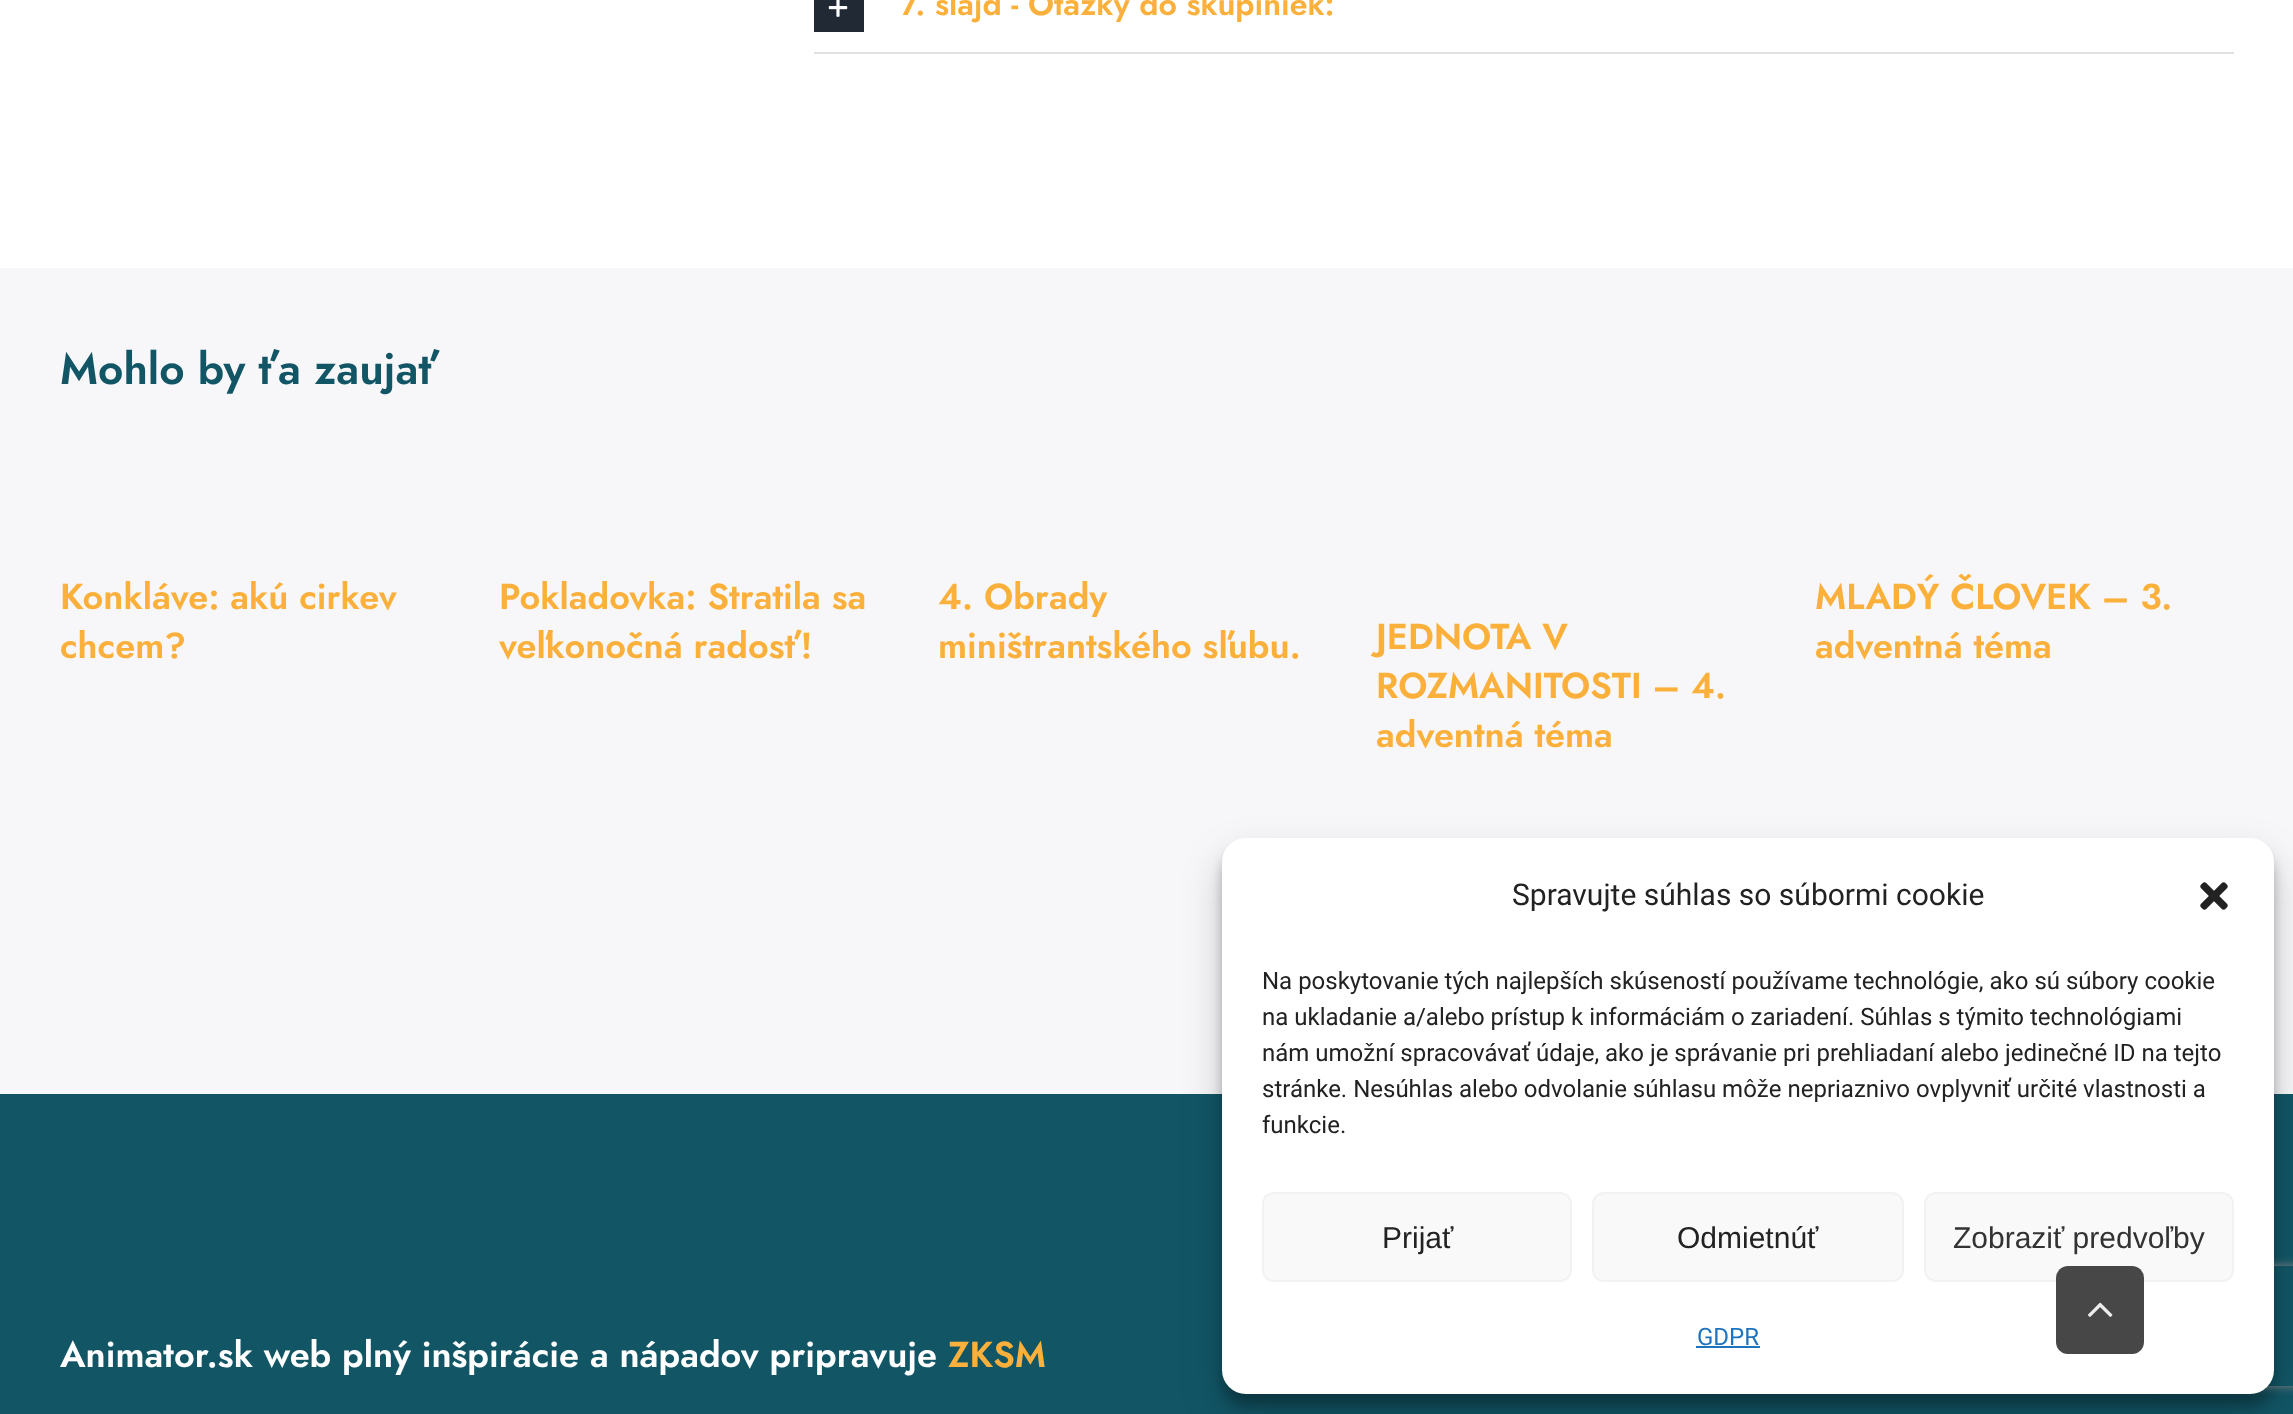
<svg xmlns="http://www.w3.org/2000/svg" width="2293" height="1414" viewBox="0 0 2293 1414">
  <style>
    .t1 { font: 600 32px Jost; fill: #fbb03b; }
    .t2 { font: 600 44px Jost; fill: #125666; }
    .t3 { font: 600 36px Jost; fill: #fbb03b; }
    .t4 { font: 600 36px Jost; fill: #fff; }
    .t5 { font: 30px Roboto; fill: #222; }
    .t6 { font: 24px Roboto; fill: #222; }
    .t7 { font: 30px Liberation Sans; fill: #222; }
    .t8 { font: 30px Liberation Sans; fill: #333; }
    .t9 { font: 24px Roboto; fill: #1e73be; }
  </style>
  <defs>
    <clipPath id="clip1"><path d="M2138 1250H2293V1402H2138ZM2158 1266H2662C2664 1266 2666 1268 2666 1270V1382C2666 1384 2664 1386 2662 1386H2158C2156 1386 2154 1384 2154 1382V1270C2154 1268 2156 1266 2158 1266Z" clip-rule="evenodd"/></clipPath>
  </defs>
  <rect width="100%" height="100%" fill="#fff"/>
  <rect x="814" y="52" width="1420" height="2" fill="#e2e2e2"/>
  <rect x="814" y="0" width="50" height="32" fill="#212934"/>
  <image x="828" y="0" width="20" height="17" href="images/1.png"/>
  <text x="900" y="15" class="t1">7. slajd - Otázky do skupiniek:</text>
  <rect x="0" y="268" width="2293" height="826" fill="#f7f7fa"/>
  <text x="60" y="384" class="t2">Mohlo by ťa zaujať</text>
  <text x="60" y="609" class="t3">Konkláve: akú cirkev</text>
  <text x="60" y="658" class="t3">chcem?</text>
  <text x="499" y="609" class="t3">Pokladovka: Stratila sa</text>
  <text x="499" y="658" class="t3">veľkonočná radosť!</text>
  <text x="938" y="609" class="t3">4. Obrady</text>
  <text x="938" y="658" class="t3">miništrantského sľubu.</text>
  <text x="1376" y="649" class="t3">JEDNOTA V</text>
  <text x="1376" y="698" class="t3">ROZMANITOSTI – 4.</text>
  <text x="1376" y="747" class="t3">adventná téma</text>
  <text x="1815" y="609" class="t3">MLADÝ ČLOVEK – 3.</text>
  <text x="1815" y="658" class="t3">adventná téma</text>
  <rect x="0" y="1094" width="2293" height="320" fill="#125666"/>
  <text x="60" y="1367" class="t4">Animator.sk web plný inšpirácie a nápadov pripravuje</text>
  <text x="948" y="1367" class="t3">ZKSM</text>
  <rect x="1222" y="850" width="1052" height="556" rx="24" fill="#0000003b" filter="blur(6px)"/>
  <rect x="1222" y="858" width="1052" height="556" rx="24" fill="#00000030" filter="blur(20px)"/>
  <g clip-path="url(#clip1)">
    <rect x="2154" y="1266" width="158" height="120" rx="4" fill="#808080" filter="blur(5px)"/>
  </g>
  <rect x="1222" y="838" width="1052" height="556" rx="24" fill="#fff"/>
  <text x="1512" y="905" class="t5">Spravujte súhlas so súbormi cookie</text>
  <image x="2200" y="882" width="28" height="28" href="images/2.png"/>
  <text x="1262" y="989" class="t6">Na poskytovanie tých najlepších skúseností používame technológie, ako sú súbory cookie</text>
  <text x="1262" y="1025" class="t6">na ukladanie a/alebo prístup k informáciám o zariadení. Súhlas s týmito technológiami</text>
  <text x="1262" y="1061" class="t6">nám umožní spracovávať údaje, ako je správanie pri prehliadaní alebo jedinečné ID na tejto</text>
  <text x="1262" y="1097" class="t6">stránke. Nesúhlas alebo odvolanie súhlasu môže nepriaznivo ovplyvniť určité vlastnosti a</text>
  <text x="1262" y="1133" class="t6">funkcie.</text>
  <rect x="1263" y="1193" width="308" height="88" rx="11" fill="#f9f9f9" stroke="#f2f2f2" stroke-width="2"/>
  <text x="1382" y="1248" class="t7">Prijať</text>
  <rect x="1593" y="1193" width="310" height="88" rx="11" fill="#f9f9f9" stroke="#f2f2f2" stroke-width="2"/>
  <text x="1677" y="1248" class="t7">Odmietnúť</text>
  <rect x="1925" y="1193" width="308" height="88" rx="11" fill="#f9f9f9" stroke="#f2f2f2" stroke-width="2"/>
  <text x="1953" y="1248" class="t8">Zobraziť predvoľby</text>
  <text x="1697" y="1345" class="t9">GDPR</text>
  <rect x="1696" y="1346" width="64" height="2" fill="#1e73be"/>
  <rect x="2056" y="1266" width="88" height="88" rx="12" fill="#333333e6"/>
  <image x="2088" y="1302" width="25" height="15" href="images/3.png"/>
</svg>
